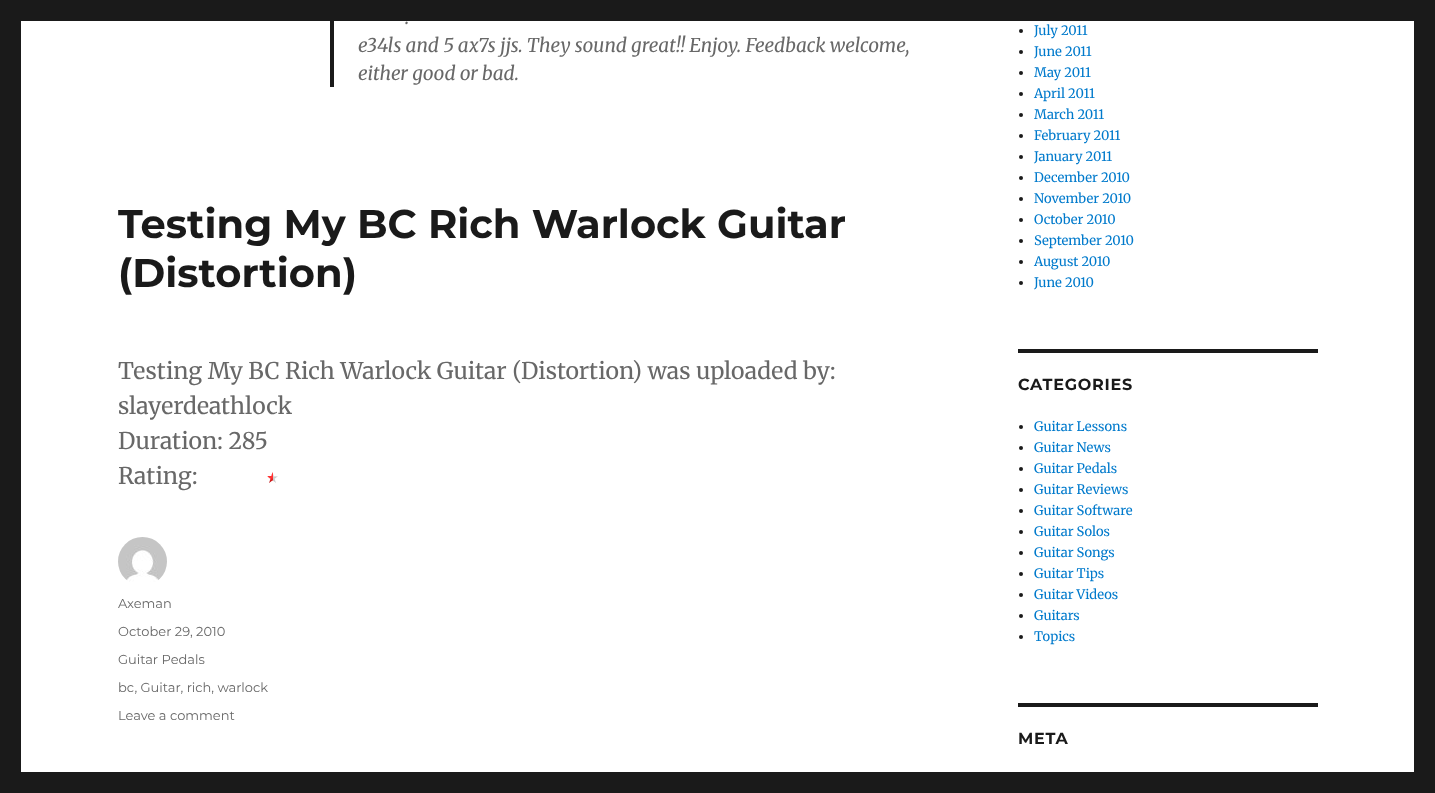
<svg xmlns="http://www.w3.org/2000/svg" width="1435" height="793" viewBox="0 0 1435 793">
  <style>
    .t1 { font: italic 19px Merriweather; fill: #686868; }
    .t2 { font: bold 40px Montserrat; fill: #1a1a1a; }
    .t3 { font: 23px Merriweather; fill: #686868; }
    .t4 { font: 13px Montserrat; fill: #686868; }
    .t5 { font: 13px Merriweather; fill: #007acc; }
    .t6 { font: bold 16px Montserrat; letter-spacing: 0.75px; fill: #1a1a1a; }
  </style>
  <rect width="100%" height="100%" fill="#1a1a1a"/>
  <rect x="21" y="21" width="1393" height="751" fill="#fff"/>
  <rect x="330" y="21" width="4" height="66" fill="#1a1a1a"/>
  <text x="405" y="24" class="t1">.</text>
  <text x="358" y="52" class="t1">e34ls and 5 ax7s jjs. They sound great!! Enjoy. Feedback welcome,</text>
  <text x="358" y="80" class="t1">either good or bad.</text>
  <text x="118" y="238" class="t2">Testing My BC Rich Warlock Guitar</text>
  <text x="118" y="287" class="t2">(Distortion)</text>
  <text x="118" y="379" class="t3">Testing My BC Rich Warlock Guitar (Distortion) was uploaded by:</text>
  <text x="118" y="414" class="t3">slayerdeathlock</text>
  <text x="118" y="449" class="t3">Duration: 285</text>
  <text x="118" y="484" class="t3">Rating:</text>
  <image x="267" y="472" width="11" height="11" href="images/1.png"/>
  <image x="118" y="537" width="49" height="45" href="images/2.png"/>
  <text x="118" y="608" class="t4">Axeman</text>
  <text x="118" y="636" class="t4">October 29, 2010</text>
  <text x="118" y="664" class="t4">Guitar Pedals</text>
  <text x="118" y="692" class="t4">bc, Guitar, rich, warlock</text>
  <text x="118" y="720" class="t4">Leave a comment</text>
  <circle cx="1021" cy="31" r="2" fill="#1a1a1a"/>
  <text x="1034" y="35" class="t5">July 2011</text>
  <circle cx="1021" cy="52" r="2" fill="#1a1a1a"/>
  <text x="1034" y="56" class="t5">June 2011</text>
  <circle cx="1021" cy="73" r="2" fill="#1a1a1a"/>
  <text x="1034" y="77" class="t5">May 2011</text>
  <circle cx="1021" cy="94" r="2" fill="#1a1a1a"/>
  <text x="1034" y="98" class="t5">April 2011</text>
  <circle cx="1021" cy="115" r="2" fill="#1a1a1a"/>
  <text x="1034" y="119" class="t5">March 2011</text>
  <circle cx="1021" cy="136" r="2" fill="#1a1a1a"/>
  <text x="1034" y="140" class="t5">February 2011</text>
  <circle cx="1021" cy="157" r="2" fill="#1a1a1a"/>
  <text x="1034" y="161" class="t5">January 2011</text>
  <circle cx="1021" cy="178" r="2" fill="#1a1a1a"/>
  <text x="1034" y="182" class="t5">December 2010</text>
  <circle cx="1021" cy="199" r="2" fill="#1a1a1a"/>
  <text x="1034" y="203" class="t5">November 2010</text>
  <circle cx="1021" cy="220" r="2" fill="#1a1a1a"/>
  <text x="1034" y="224" class="t5">October 2010</text>
  <circle cx="1021" cy="241" r="2" fill="#1a1a1a"/>
  <text x="1034" y="245" class="t5">September 2010</text>
  <circle cx="1021" cy="262" r="2" fill="#1a1a1a"/>
  <text x="1034" y="266" class="t5">August 2010</text>
  <circle cx="1021" cy="283" r="2" fill="#1a1a1a"/>
  <text x="1034" y="287" class="t5">June 2010</text>
  <rect x="1018" y="349" width="300" height="4" fill="#1a1a1a"/>
  <text x="1018" y="390" class="t6">CATEGORIES</text>
  <circle cx="1021" cy="427" r="2" fill="#1a1a1a"/>
  <text x="1034" y="431" class="t5">Guitar Lessons</text>
  <circle cx="1021" cy="448" r="2" fill="#1a1a1a"/>
  <text x="1034" y="452" class="t5">Guitar News</text>
  <circle cx="1021" cy="469" r="2" fill="#1a1a1a"/>
  <text x="1034" y="473" class="t5">Guitar Pedals</text>
  <circle cx="1021" cy="490" r="2" fill="#1a1a1a"/>
  <text x="1034" y="494" class="t5">Guitar Reviews</text>
  <circle cx="1021" cy="511" r="2" fill="#1a1a1a"/>
  <text x="1034" y="515" class="t5">Guitar Software</text>
  <circle cx="1021" cy="532" r="2" fill="#1a1a1a"/>
  <text x="1034" y="536" class="t5">Guitar Solos</text>
  <circle cx="1021" cy="553" r="2" fill="#1a1a1a"/>
  <text x="1034" y="557" class="t5">Guitar Songs</text>
  <circle cx="1021" cy="574" r="2" fill="#1a1a1a"/>
  <text x="1034" y="578" class="t5">Guitar Tips</text>
  <circle cx="1021" cy="595" r="2" fill="#1a1a1a"/>
  <text x="1034" y="599" class="t5">Guitar Videos</text>
  <circle cx="1021" cy="616" r="2" fill="#1a1a1a"/>
  <text x="1034" y="620" class="t5">Guitars</text>
  <circle cx="1021" cy="637" r="2" fill="#1a1a1a"/>
  <text x="1034" y="641" class="t5">Topics</text>
  <rect x="1018" y="703" width="300" height="4" fill="#1a1a1a"/>
  <text x="1018" y="744" class="t6">META</text>
</svg>
